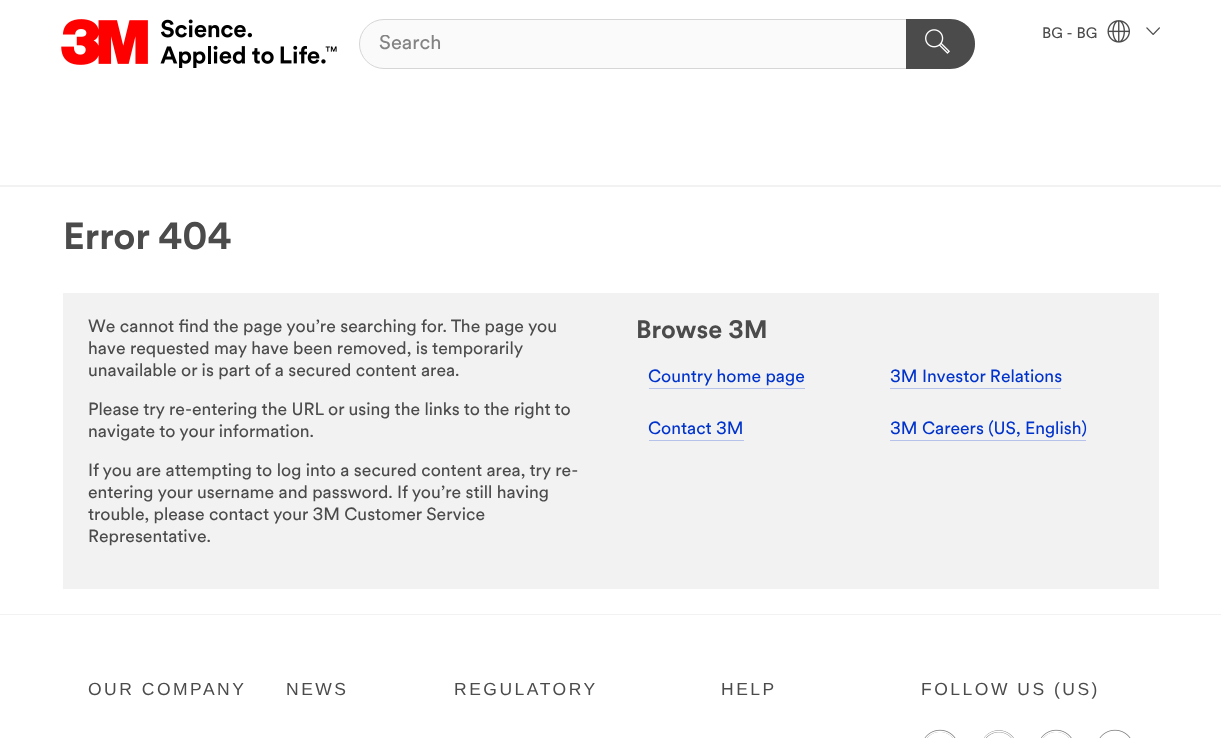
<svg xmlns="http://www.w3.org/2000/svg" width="1221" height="738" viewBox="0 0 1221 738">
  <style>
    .t1 { font: 15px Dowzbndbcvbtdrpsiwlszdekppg; fill: #4b4b4b; }
    .t2 { font: 20px Dowzbndbcvbtdrpsiwlszdekppg; fill: #838383; }
    .t3 { font: bold 37.5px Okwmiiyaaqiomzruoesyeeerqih; fill: #4b4b4b; }
    .t4 { font: 17.5px Dowzbndbcvbtdrpsiwlszdekppg; fill: #4b4b4b; }
    .t5 { font: bold 25px Okwmiiyaaqiomzruoesyeeerqih; fill: #4b4b4b; }
    .t6 { font: 17.5px Dowzbndbcvbtdrpsiwlszdekppg; fill: #03c; }
    .t7 { font: 17.5px Liberation Sans; letter-spacing: 2.5px; fill: #4b4b4b; }
  </style>
  <defs>
    <clipPath id="clip1"><rect x="379" y="35" width="515" height="20"/></clipPath>
  </defs>
  <rect width="100%" height="100%" fill="#fff"/>
  <text x="1042" y="38" class="t1">BG - BG</text>
  <image x="1107" y="20" width="23" height="23" href="images/1.png"/>
  <image x="1146" y="27" width="14" height="8" href="images/2.png"/>
  <image x="61" y="19" width="276" height="49" href="images/3.png"/>
  <rect x="359.5" y="19.5" width="615" height="49" rx="24.5" fill="#fafafa" stroke="#d6d6d6"/>
  <g clip-path="url(#clip1)">
    <text x="379" y="49" class="t2">Search</text>
  </g>
  <path d="M906 19H950C964 19 975 30 975 44C975 58 964 69 950 69H906Z" fill="#4b4b4b"/>
  <image x="925" y="29" width="25" height="25" href="images/4.png"/>
  <rect x="0" y="185" width="1221" height="2" fill="#f2f2f2"/>
  <text x="63" y="249" class="t3">Error 404</text>
  <rect x="63" y="293" width="1096" height="296" fill="#f2f2f2"/>
  <text x="88" y="332" class="t4">We cannot find the page you’re searching for. The page you</text>
  <text x="88" y="354" class="t4">have requested may have been removed, is temporarily</text>
  <text x="88" y="376" class="t4">unavailable or is part of a secured content area.</text>
  <text x="88" y="415" class="t4">Please try re-entering the URL or using the links to the right to</text>
  <text x="88" y="437" class="t4">navigate to your information.</text>
  <text x="88" y="476" class="t4">If you are attempting to log into a secured content area, try re-</text>
  <text x="88" y="498" class="t4">entering your username and password. If you’re still having</text>
  <text x="88" y="520" class="t4">trouble, please contact your 3M Customer Service</text>
  <text x="88" y="542" class="t4">Representative.</text>
  <text x="636" y="338" class="t5">Browse 3M</text>
  <text x="648" y="382" class="t6">Country home page</text>
  <rect x="649" y="388" width="156" height="1" fill="#b6c2e9"/>
  <text x="890" y="382" class="t6">3M Investor Relations</text>
  <rect x="890" y="388" width="171" height="1" fill="#b6c2e9"/>
  <text x="648" y="434" class="t6">Contact 3M</text>
  <rect x="649" y="440" width="95" height="1" fill="#b6c2e9"/>
  <text x="890" y="434" class="t6">3M Careers (US, English)</text>
  <rect x="890" y="440" width="196" height="1" fill="#b6c2e9"/>
  <rect x="0" y="614" width="1221" height="1" fill="#f2f2f2"/>
  <text x="88" y="695" class="t7">OUR COMPANY</text>
  <text x="286" y="695" class="t7">NEWS</text>
  <text x="454" y="695" class="t7">REGULATORY</text>
  <text x="721" y="695" class="t7">HELP</text>
  <text x="921" y="695" class="t7">FOLLOW US (US)</text>
  <image x="924" y="729" width="32" height="9" href="images/5.png"/>
  <image x="925" y="730" width="30" height="8" href="images/6.png"/>
  <image x="984" y="730" width="30" height="8" href="images/7.png"/>
  <image x="984" y="730" width="30" height="8" href="images/8.png"/>
  <image x="1041" y="729" width="31" height="9" href="images/9.png"/>
  <image x="1041" y="730" width="30" height="8" href="images/10.png"/>
  <image x="1099" y="729" width="32" height="9" href="images/11.png"/>
  <image x="1100" y="730" width="30" height="8" href="images/12.png"/>
</svg>
